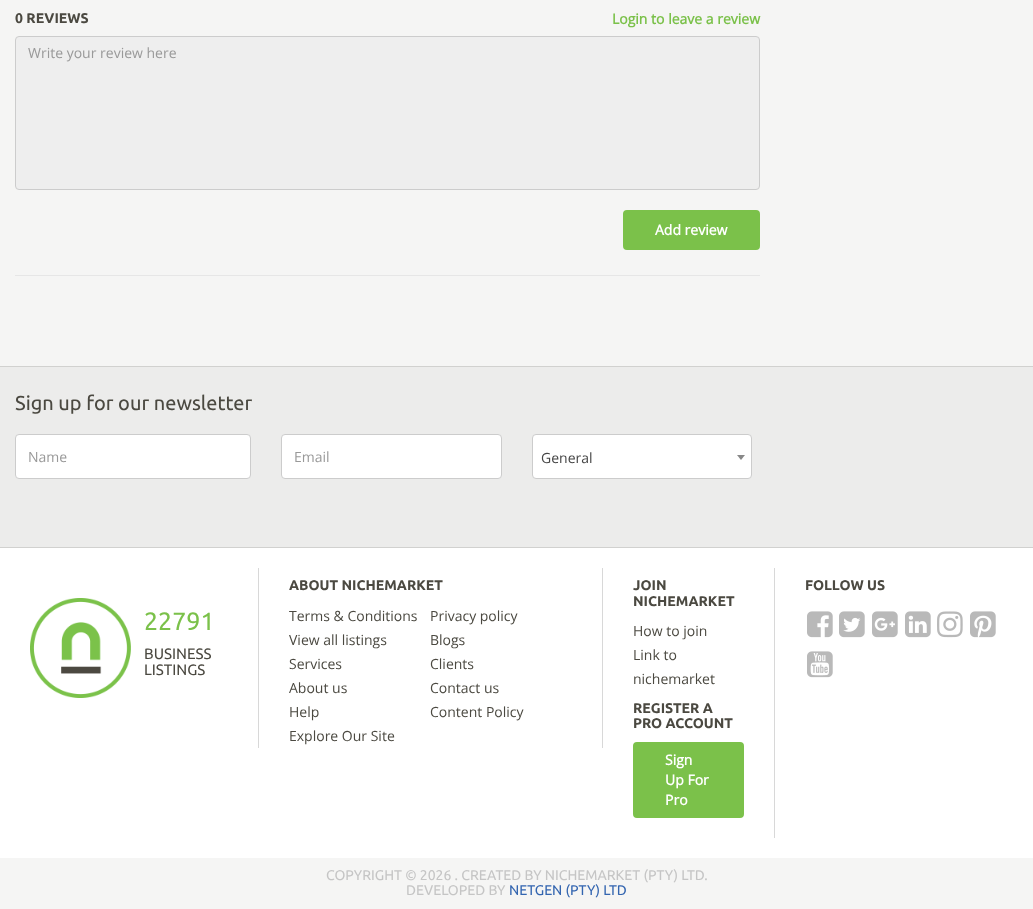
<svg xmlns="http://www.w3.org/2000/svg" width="1033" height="909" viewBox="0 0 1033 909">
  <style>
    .t1 { font: bold 14px Ubuntu; fill: #4b4941; }
    .t2 { font: bold 14px Open Sans; fill: #7bc14a; }
    .t3 { font: 14px Open Sans; fill: #999; }
    .t4 { font: bold 14px Open Sans; fill: #fff; }
    .t5 { font: 20px Ubuntu; fill: #4b4941; }
    .t6 { font: 14px Open Sans; fill: #444; }
    .t7 { font: 14px Open Sans; fill: #4b4941; }
    .t8 { font: 25px Ubuntu; fill: #7bc14a; }
    .t9 { font: 15px Ubuntu; fill: #4b4941; }
    .t10 { font: 14px Ubuntu; fill: #c5c5c5; }
    .t11 { font: 14px Ubuntu; fill: #3365b0; }
  </style>
  <rect width="100%" height="100%" fill="#f5f5f4"/>
  <text x="15" y="23" class="t1">0 REVIEWS</text>
  <text x="612" y="24" class="t2">Login to leave a review</text>
  <rect x="15.5" y="36.5" width="744" height="153" rx="3.5" fill="#eee" stroke="#ccc"/>
  <text x="28" y="58" class="t3">Write your review here</text>
  <rect x="624" y="211" width="135" height="38" rx="3" fill="#7bc14a" stroke="#7bc14a" stroke-width="2"/>
  <text x="655" y="235" class="t4">Add review</text>
  <rect x="15" y="275" width="745" height="1" fill="#e6e6e6"/>
  <rect x="0" y="367" width="1033" height="180" fill="#ececeb"/>
  <rect x="0" y="366" width="1033" height="1" fill="#d1d1cf"/>
  <rect x="0" y="547" width="1033" height="1" fill="#d1d1cf"/>
  <text x="15" y="410" class="t5">Sign up for our newsletter</text>
  <rect x="15.5" y="434.5" width="235" height="44" rx="3.5" fill="#fff" stroke="#ccc"/>
  <text x="28" y="462" class="t3">Name</text>
  <rect x="281.5" y="434.5" width="220" height="44" rx="3.5" fill="#fff" stroke="#ccc"/>
  <text x="294" y="462" class="t3">Email</text>
  <rect x="532.5" y="434.5" width="219" height="44" rx="3.5" fill="#fff" stroke="#ccc"/>
  <text x="541" y="463" class="t6">General</text>
  <path d="M737 455H745L741 460Z" fill="#888"/>
  <rect x="0" y="548" width="1033" height="310" fill="#fff"/>
  <rect x="602" y="568" width="1" height="180" fill="#d8d8d8"/>
  <rect x="258" y="568" width="1" height="180" fill="#d8d8d8"/>
  <text x="289" y="590" class="t1">ABOUT NICHEMARKET</text>
  <text x="289" y="621" class="t7">Terms &amp; Conditions</text>
  <text x="430" y="621" class="t7">Privacy policy</text>
  <text x="289" y="645" class="t7">View all listings</text>
  <text x="430" y="645" class="t7">Blogs</text>
  <text x="289" y="669" class="t7">Services</text>
  <text x="430" y="669" class="t7">Clients</text>
  <text x="289" y="693" class="t7">About us</text>
  <text x="430" y="693" class="t7">Contact us</text>
  <text x="289" y="717" class="t7">Help</text>
  <text x="430" y="717" class="t7">Content Policy</text>
  <text x="289" y="741" class="t7">Explore Our Site</text>
  <rect x="774" y="568" width="1" height="270" fill="#d8d8d8"/>
  <text x="633" y="590" class="t1">JOIN</text>
  <text x="633" y="606" class="t1">NICHEMARKET</text>
  <text x="633" y="636" class="t7">How to join</text>
  <text x="633" y="660" class="t7">Link to</text>
  <text x="633" y="684" class="t7">nichemarket</text>
  <text x="633" y="713" class="t1">REGISTER A</text>
  <text x="633" y="728" class="t1">PRO ACCOUNT</text>
  <rect x="634" y="743" width="109" height="74" rx="3" fill="#7bc14a" stroke="#7bc14a" stroke-width="2"/>
  <text x="665" y="765" class="t4">Sign</text>
  <text x="665" y="785" class="t4">Up For</text>
  <text x="665" y="805" class="t4">Pro</text>
  <text x="805" y="590" class="t1">FOLLOW US</text>
  <image x="807" y="611" width="26" height="27" href="images/1.png"/>
  <image x="839" y="611" width="26" height="27" href="images/2.png"/>
  <image x="872" y="611" width="26" height="27" href="images/3.png"/>
  <image x="905" y="611" width="26" height="27" href="images/4.png"/>
  <image x="937" y="611" width="26" height="27" href="images/5.png"/>
  <image x="970" y="611" width="26" height="27" href="images/6.png"/>
  <image x="807" y="651" width="26" height="27" href="images/7.png"/>
  <image x="30" y="598" width="101" height="100" href="images/8.png"/>
  <text x="144" y="630" class="t8">22791</text>
  <text x="144" y="659" class="t9">BUSINESS</text>
  <text x="144" y="675" class="t9">LISTINGS</text>
  <text x="326" y="880" class="t10">COPYRIGHT © 2026 . CREATED BY NICHEMARKET (PTY) LTD.</text>
  <text x="406" y="895" class="t10">DEVELOPED BY</text>
  <text x="509" y="895" class="t11">NETGEN (PTY) LTD</text>
</svg>
